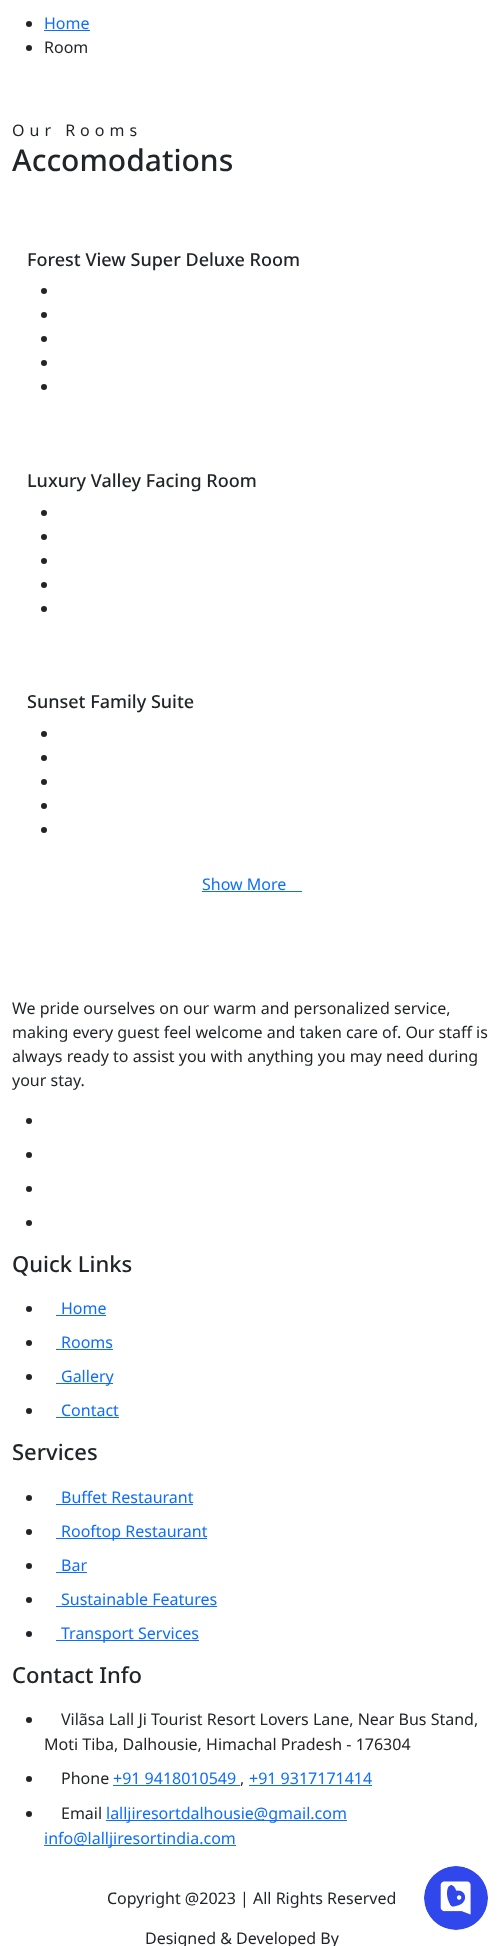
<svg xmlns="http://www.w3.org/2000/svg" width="504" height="1946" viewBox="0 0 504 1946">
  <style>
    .t1 { font: 16px Noto Sans; fill: #0d6efd; }
    .t2 { font: 16px Noto Sans; fill: #212529; }
    .t3 { font: 16px Noto Sans; letter-spacing: 5px; fill: #212529; }
    .t4 { font: 500 30px Noto Sans; fill: #212529; }
    .t5 { font: 500 18px Noto Sans; fill: #212529; }
    .t6 { font: 500 22px Noto Sans; fill: #212529; }
  </style>
  <rect width="100%" height="100%" fill="#fff"/>
  <circle cx="29" cy="24" r="3" fill="#212529"/>
  <text x="44" y="29" class="t1">Home</text>
  <rect x="44" y="30" width="46" height="1" fill="#0d6efd"/>
  <circle cx="29" cy="48" r="3" fill="#212529"/>
  <text x="44" y="53" class="t2">Room</text>
  <text x="12" y="136" class="t3">Our Rooms</text>
  <text x="12" y="171" class="t4">Accomodations</text>
  <text x="27" y="266" class="t5">Forest View Super Deluxe Room</text>
  <circle cx="44" cy="291" r="3" fill="#212529"/>
  <circle cx="44" cy="315" r="3" fill="#212529"/>
  <circle cx="44" cy="339" r="3" fill="#212529"/>
  <circle cx="44" cy="363" r="3" fill="#212529"/>
  <circle cx="44" cy="387" r="3" fill="#212529"/>
  <text x="27" y="487" class="t5">Luxury Valley Facing Room</text>
  <circle cx="44" cy="513" r="3" fill="#212529"/>
  <circle cx="44" cy="537" r="3" fill="#212529"/>
  <circle cx="44" cy="561" r="3" fill="#212529"/>
  <circle cx="44" cy="585" r="3" fill="#212529"/>
  <circle cx="44" cy="609" r="3" fill="#212529"/>
  <text x="27" y="708" class="t5">Sunset Family Suite</text>
  <circle cx="44" cy="734" r="3" fill="#212529"/>
  <circle cx="44" cy="758" r="3" fill="#212529"/>
  <circle cx="44" cy="782" r="3" fill="#212529"/>
  <circle cx="44" cy="806" r="3" fill="#212529"/>
  <circle cx="44" cy="830" r="3" fill="#212529"/>
  <text x="202" y="890" class="t1">Show More</text>
  <rect x="202" y="891" width="100" height="1" fill="#0d6efd"/>
  <text x="12" y="1014" class="t2">We pride ourselves on our warm and personalized service,</text>
  <text x="12" y="1038" class="t2">making every guest feel welcome and taken care of. Our staff is</text>
  <text x="12" y="1062" class="t2">always ready to assist you with anything you may need during</text>
  <text x="12" y="1086" class="t2">your stay.</text>
  <circle cx="29" cy="1121" r="3" fill="#212529"/>
  <circle cx="29" cy="1155" r="3" fill="#212529"/>
  <circle cx="29" cy="1189" r="3" fill="#212529"/>
  <circle cx="29" cy="1223" r="3" fill="#212529"/>
  <text x="12" y="1272" class="t6">Quick Links</text>
  <circle cx="29" cy="1309" r="3" fill="#212529"/>
  <text x="61" y="1314" class="t1">Home</text>
  <rect x="56" y="1315" width="50" height="1" fill="#0d6efd"/>
  <circle cx="29" cy="1343" r="3" fill="#212529"/>
  <text x="61" y="1348" class="t1">Rooms</text>
  <rect x="56" y="1349" width="57" height="1" fill="#0d6efd"/>
  <circle cx="29" cy="1377" r="3" fill="#212529"/>
  <rect x="56" y="1383" width="57" height="1" fill="#0d6efd"/>
  <text x="61" y="1382" class="t1">Gallery</text>
  <circle cx="29" cy="1411" r="3" fill="#212529"/>
  <text x="61" y="1416" class="t1">Contact</text>
  <rect x="56" y="1417" width="63" height="1" fill="#0d6efd"/>
  <text x="12" y="1460" class="t6">Services</text>
  <circle cx="29" cy="1498" r="3" fill="#212529"/>
  <text x="61" y="1503" class="t1">Buffet Restaurant</text>
  <rect x="56" y="1504" width="137" height="1" fill="#0d6efd"/>
  <circle cx="29" cy="1532" r="3" fill="#212529"/>
  <rect x="56" y="1538" width="151" height="1" fill="#0d6efd"/>
  <text x="61" y="1537" class="t1">Rooftop Restaurant</text>
  <circle cx="29" cy="1566" r="3" fill="#212529"/>
  <text x="61" y="1571" class="t1">Bar</text>
  <rect x="56" y="1572" width="31" height="1" fill="#0d6efd"/>
  <circle cx="29" cy="1600" r="3" fill="#212529"/>
  <text x="61" y="1605" class="t1">Sustainable Features</text>
  <rect x="56" y="1606" width="161" height="1" fill="#0d6efd"/>
  <circle cx="29" cy="1634" r="3" fill="#212529"/>
  <rect x="56" y="1640" width="143" height="1" fill="#0d6efd"/>
  <text x="61" y="1639" class="t1">Transport Services</text>
  <text x="12" y="1683" class="t6">Contact Info</text>
  <circle cx="29" cy="1720" r="3" fill="#212529"/>
  <text x="61" y="1725" class="t2">Vilãsa Lall Ji Tourist Resort Lovers Lane, Near Bus Stand,</text>
  <text x="44" y="1750" class="t2">Moti Tiba, Dalhousie, Himachal Pradesh - 176304</text>
  <circle cx="29" cy="1779" r="3" fill="#212529"/>
  <text x="61" y="1784" class="t2">Phone</text>
  <text x="113" y="1784" class="t1">+91 9418010549</text>
  <rect x="113" y="1785" width="127" height="1" fill="#0d6efd"/>
  <text x="249" y="1784" class="t1">+91 9317171414</text>
  <rect x="249" y="1785" width="123" height="1" fill="#0d6efd"/>
  <text x="240" y="1784" class="t2">,</text>
  <circle cx="29" cy="1814" r="3" fill="#212529"/>
  <text x="61" y="1819" class="t2">Email</text>
  <rect x="106" y="1820" width="241" height="1" fill="#0d6efd"/>
  <text x="106" y="1819" class="t1">lalljiresortdalhousie@gmail.com</text>
  <rect x="44" y="1845" width="192" height="1" fill="#0d6efd"/>
  <text x="44" y="1844" class="t1">info@lalljiresortindia.com</text>
  <text x="107" y="1904" class="t2">Copyright @2023 | All Rights Reserved</text>
  <text x="145" y="1944" class="t2">Designed &amp; Developed By</text>
  <image x="424" y="1866" width="64" height="64" href="images/1.png"/>
</svg>
